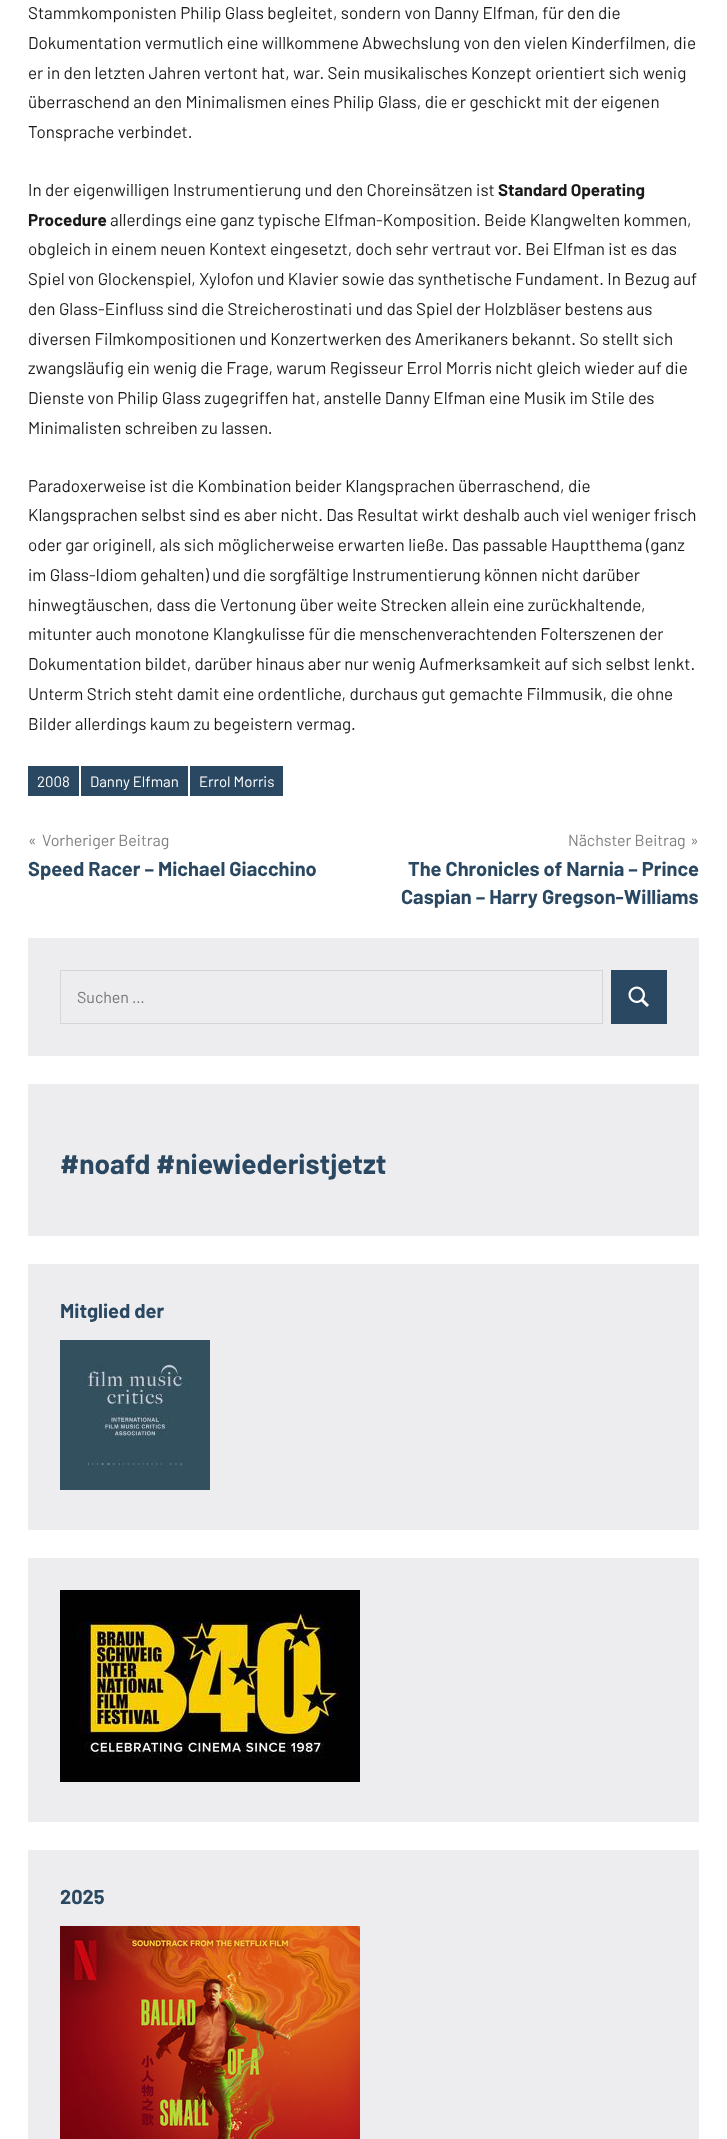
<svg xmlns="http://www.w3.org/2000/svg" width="727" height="2139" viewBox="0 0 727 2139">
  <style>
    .t1 { font: 17px Barlow; fill: #1a1a1a; }
    .t2 { font: bold 17px Barlow; fill: #1a1a1a; }
    .t3 { font: 15px Barlow; fill: #fff; }
    .t4 { font: 16px Barlow; fill: #808080; }
    .t5 { font: bold 20px Barlow; fill: #2a4861; }
    .t6 { font: 16px Barlow; fill: #757575; }
    .t7 { font: bold 28px Barlow; fill: #2a4861; }
  </style>
  <rect width="100%" height="100%" fill="#fff"/>
  <text x="28" y="19" class="t1">Stammkomponisten Philip Glass begleitet, sondern von Danny Elfman, für den die</text>
  <text x="28" y="49" class="t1">Dokumentation vermutlich eine willkommene Abwechslung von den vielen Kinderfilmen, die</text>
  <text x="28" y="79" class="t1">er in den letzten Jahren vertont hat, war. Sein musikalisches Konzept orientiert sich wenig</text>
  <text x="28" y="108" class="t1">überraschend an den Minimalismen eines Philip Glass, die er geschickt mit der eigenen</text>
  <text x="28" y="138" class="t1">Tonsprache verbindet.</text>
  <text x="28" y="196" class="t1">In der eigenwilligen Instrumentierung und den Choreinsätzen ist</text>
  <text x="498" y="196" class="t2">Standard Operating</text>
  <text x="28" y="226" class="t2">Procedure</text>
  <text x="110" y="226" class="t1">allerdings eine ganz typische Elfman-Komposition. Beide Klangwelten kommen,</text>
  <text x="28" y="255" class="t1">obgleich in einem neuen Kontext eingesetzt, doch sehr vertraut vor. Bei Elfman ist es das</text>
  <text x="28" y="285" class="t1">Spiel von Glockenspiel, Xylofon und Klavier sowie das synthetische Fundament. In Bezug auf</text>
  <text x="28" y="315" class="t1">den Glass-Einfluss sind die Streicherostinati und das Spiel der Holzbläser bestens aus</text>
  <text x="28" y="345" class="t1">diversen Filmkompositionen und Konzertwerken des Amerikaners bekannt. So stellt sich</text>
  <text x="28" y="374" class="t1">zwangsläufig ein wenig die Frage, warum Regisseur Errol Morris nicht gleich wieder auf die</text>
  <text x="28" y="404" class="t1">Dienste von Philip Glass zugegriffen hat, anstelle Danny Elfman eine Musik im Stile des</text>
  <text x="28" y="434" class="t1">Minimalisten schreiben zu lassen.</text>
  <text x="28" y="492" class="t1">Paradoxerweise ist die Kombination beider Klangsprachen überraschend, die</text>
  <text x="28" y="521" class="t1">Klangsprachen selbst sind es aber nicht. Das Resultat wirkt deshalb auch viel weniger frisch</text>
  <text x="28" y="551" class="t1">oder gar originell, als sich möglicherweise erwarten ließe. Das passable Hauptthema (ganz</text>
  <text x="28" y="581" class="t1">im Glass-Idiom gehalten) und die sorgfältige Instrumentierung können nicht darüber</text>
  <text x="28" y="611" class="t1">hinwegtäuschen, dass die Vertonung über weite Strecken allein eine zurückhaltende,</text>
  <text x="28" y="640" class="t1">mitunter auch monotone Klangkulisse für die menschenverachtenden Folterszenen der</text>
  <text x="28" y="670" class="t1">Dokumentation bildet, darüber hinaus aber nur wenig Aufmerksamkeit auf sich selbst lenkt.</text>
  <text x="28" y="700" class="t1">Unterm Strich steht damit eine ordentliche, durchaus gut gemachte Filmmusik, die ohne</text>
  <text x="28" y="730" class="t1">Bilder allerdings kaum zu begeistern vermag.</text>
  <rect x="28" y="766" width="51" height="30" fill="#2a4861"/>
  <text x="37" y="787" class="t3">2008</text>
  <rect x="81" y="766" width="107" height="30" fill="#2a4861"/>
  <text x="90" y="787" class="t3">Danny Elfman</text>
  <rect x="190" y="766" width="93" height="30" fill="#2a4861"/>
  <text x="199" y="787" class="t3">Errol Morris</text>
  <text x="28" y="846" class="t4">«</text>
  <text x="42" y="846" class="t4">Vorheriger Beitrag</text>
  <text x="28" y="876" class="t5">Speed Racer – Michael Giacchino</text>
  <text x="568" y="846" class="t4">Nächster Beitrag</text>
  <text x="690" y="846" class="t4">»</text>
  <text x="408" y="876" class="t5">The Chronicles of Narnia – Prince</text>
  <text x="401" y="904" class="t5">Caspian – Harry Gregson-Williams</text>
  <rect x="28" y="938" width="671" height="118" fill="#ededef"/>
  <rect x="60.5" y="970.5" width="542" height="53" fill="none" stroke="#d5d5d7"/>
  <text x="77" y="1003" class="t6">Suchen …</text>
  <rect x="611" y="970" width="56" height="54" fill="#2a4861"/>
  <image x="628" y="986" width="21" height="21" href="images/1.png"/>
  <rect x="28" y="1084" width="671" height="152" fill="#ededef"/>
  <text x="60" y="1174" class="t7">#noafd #niewiederistjetzt</text>
  <rect x="28" y="1264" width="671" height="266" fill="#ededef"/>
  <text x="60" y="1318" class="t5">Mitglied der</text>
  <image x="60" y="1340" width="150" height="150" href="images/2.png"/>
  <rect x="28" y="1558" width="671" height="264" fill="#ededef"/>
  <image x="60" y="1590" width="300" height="192" href="images/3.png"/>
  <rect x="28" y="1850" width="671" height="289" fill="#ededef"/>
  <text x="60" y="1904" class="t5">2025</text>
  <image x="60" y="1926" width="300" height="213" href="images/4.png"/>
</svg>
